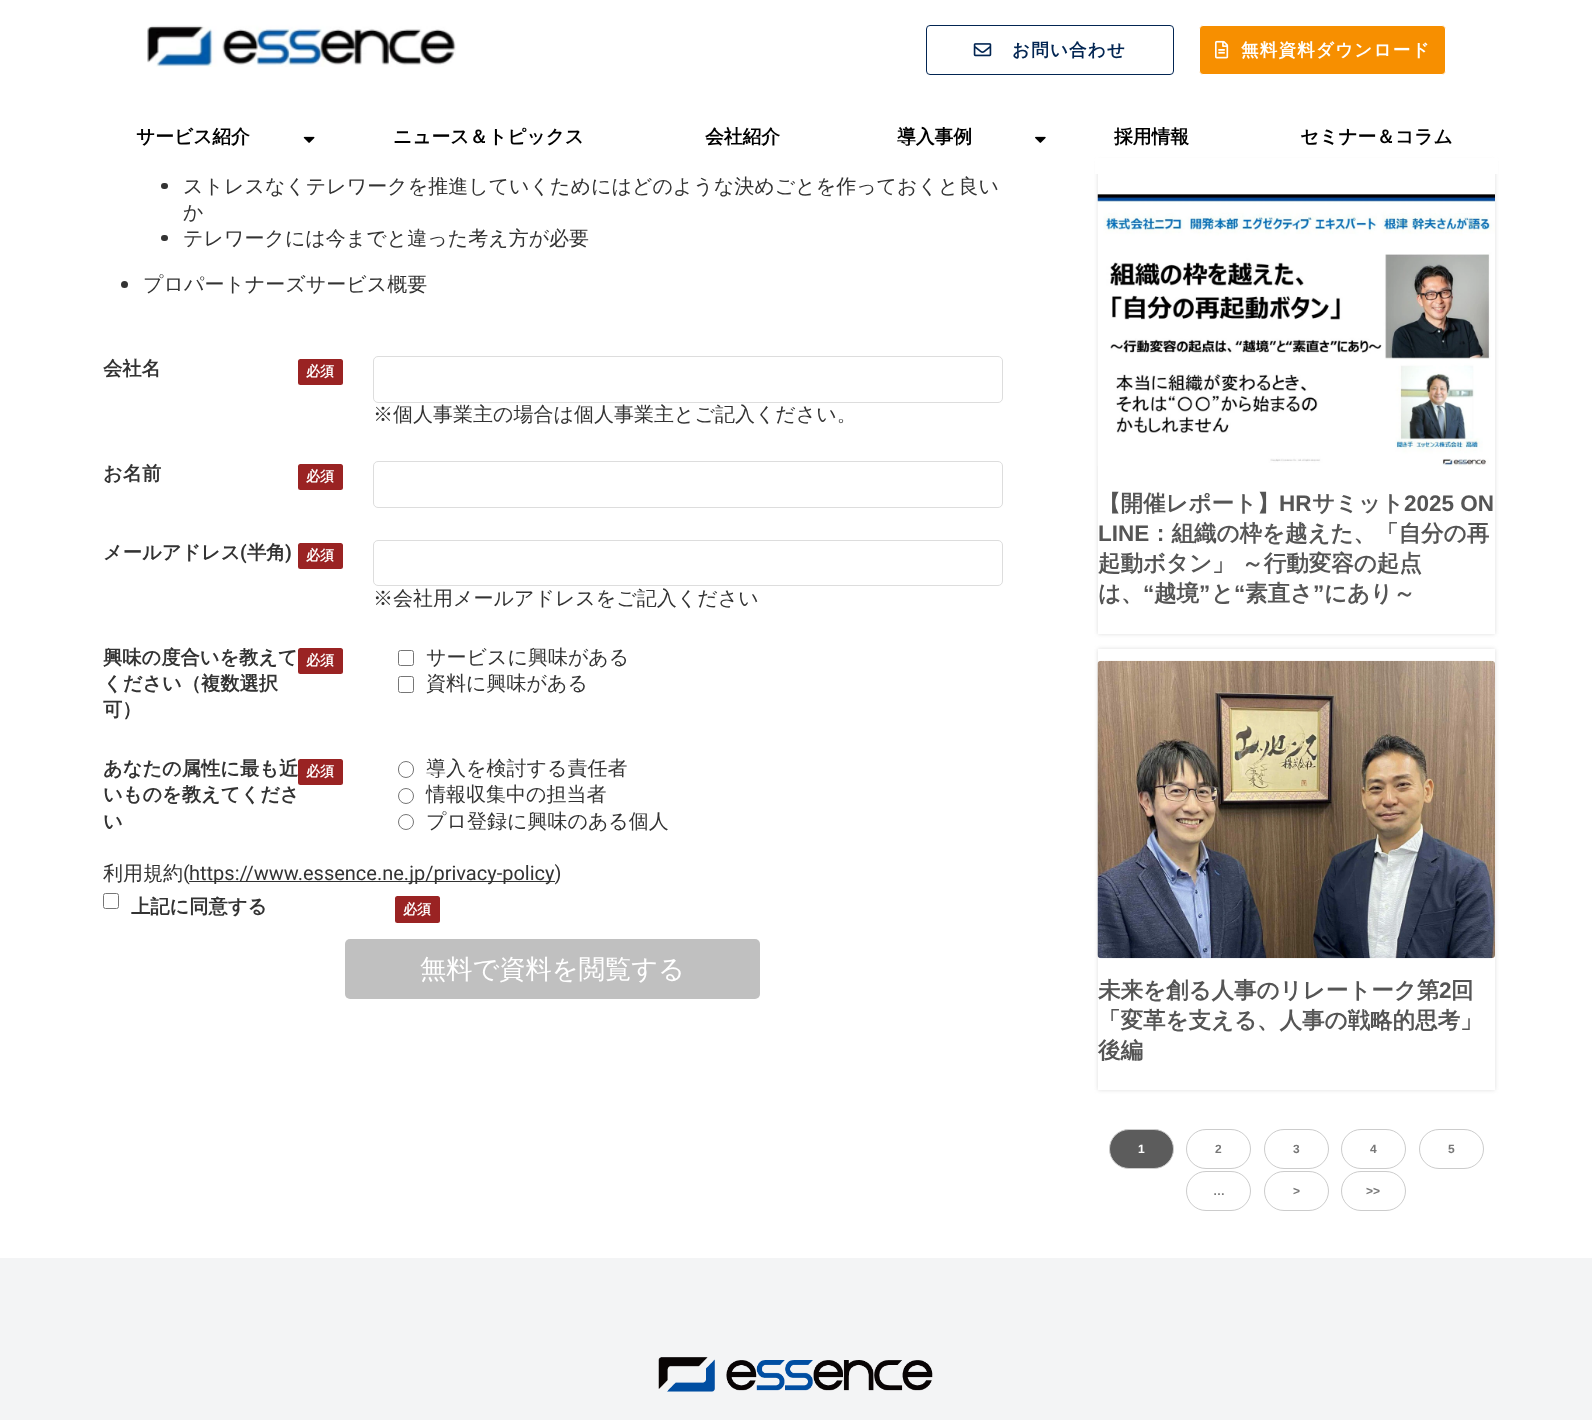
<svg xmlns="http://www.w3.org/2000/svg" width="1592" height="1420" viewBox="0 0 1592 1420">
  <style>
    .t1 { font: bold 17.5px WenQuanYi Zen Hei; letter-spacing: 1.25px; fill: #022552; }
    .t2 { font: bold 17.5px WenQuanYi Zen Hei; letter-spacing: 1.25px; fill: #fff; }
    .t3 { font: bold 18.75px WenQuanYi Zen Hei; fill: #000; }
    .t4 { font: 500 20px WenQuanYi Zen Hei; fill: #333; }
    .t5 { font: bold 19.25px WenQuanYi Zen Hei; fill: #333; }
    .t6 { font: bold 14px WenQuanYi Zen Hei; fill: #fff; }
    .t7 { font: bold 19.25px Roboto; fill: #333; }
    .t8 { font: 20px Roboto; fill: #333; }
    .t9 { font: 500 26.25px WenQuanYi Zen Hei; fill: #fff; }
    .t10 { font: bold 22.5px WenQuanYi Zen Hei; fill: #555; }
    .t11 { font: bold 22.5px Liberation Sans; fill: #555; }
    .t12 { font: bold 12px Liberation Sans; fill: #fff; }
    .t13 { font: bold 12px Liberation Sans; fill: #777; }
  </style>
  <defs>
    <clipPath id="clip1"><path d="M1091 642H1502V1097H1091ZM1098 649H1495V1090H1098Z" clip-rule="evenodd"/></clipPath>
  </defs>
  <rect width="100%" height="100%" fill="#fff"/>
  <rect x="1098" y="161" width="397" height="473" fill="#ddd" filter="blur(2px)"/>
  <rect x="1095" y="158" width="403" height="16" fill="#fff"/>
  <image x="147" y="25" width="309" height="42" href="images/1.png"/>
  <rect x="926.5" y="25.5" width="247" height="49" rx="3.5" fill="none" stroke="#022552"/>
  <image x="973" y="43" width="19" height="14" href="images/2.png"/>
  <text x="1012" y="56" class="t1">お問い合わせ</text>
  <rect x="1199.5" y="25.5" width="246" height="49" rx="3.5" fill="#f78f00" stroke="#fff"/>
  <image x="1215" y="40" width="14" height="19" href="images/3.png"/>
  <text x="1241" y="56" class="t2">無料資料ダウンロード</text>
  <text x="136" y="143" class="t3">サービス紹介</text>
  <image x="303" y="136" width="12" height="7" href="images/4.png"/>
  <text x="393" y="143" class="t3">ニュース＆トピックス</text>
  <text x="705" y="143" class="t3">会社紹介</text>
  <text x="897" y="143" class="t3">導入事例</text>
  <image x="1035" y="136" width="11" height="7" href="images/5.png"/>
  <text x="1114" y="143" class="t3">採用情報</text>
  <text x="1300" y="143" class="t3">セミナー＆コラム</text>
  <rect x="161" y="183" width="7" height="6" rx="3" fill="#333"/>
  <text x="183" y="193" class="t4">ストレスなくテレワークを推進していくためにはどのような決めごとを作っておくと良い</text>
  <text x="183" y="219" class="t4">か</text>
  <rect x="161" y="235" width="7" height="6" rx="3" fill="#333"/>
  <text x="183" y="245" class="t4">テレワークには今までと違った考え方が必要</text>
  <circle cx="124.5" cy="284.5" r="3.5" fill="#333"/>
  <text x="143" y="291" class="t4">プロパートナーズサービス概要</text>
  <text x="103" y="375" class="t5">会社名</text>
  <rect x="298" y="359" width="45" height="26" rx="2.5" fill="#9a2323"/>
  <text x="306" y="376" class="t6">必須</text>
  <rect x="373.5" y="356.5" width="629" height="46" rx="4.5" fill="none" stroke="#ddd"/>
  <text x="373" y="421" class="t4">※個人事業主の場合は個人事業主とご記入ください。</text>
  <text x="103" y="480" class="t5">お名前</text>
  <rect x="298" y="464" width="45" height="26" rx="2.5" fill="#9a2323"/>
  <text x="306" y="481" class="t6">必須</text>
  <rect x="373.5" y="461.5" width="629" height="46" rx="4.5" fill="none" stroke="#ddd"/>
  <text x="103" y="559" class="t5">メールアドレス</text>
  <text x="240" y="559" class="t7">(</text>
  <text x="247" y="559" class="t5">半角</text>
  <text x="285" y="559" class="t7">)</text>
  <rect x="298" y="543" width="45" height="26" rx="2.5" fill="#9a2323"/>
  <text x="306" y="560" class="t6">必須</text>
  <rect x="373.5" y="540.5" width="629" height="45" rx="4.5" fill="none" stroke="#ddd"/>
  <text x="373" y="605" class="t4">※会社用メールアドレスをご記入ください</text>
  <text x="103" y="664" class="t5">興味の度合いを教えて</text>
  <rect x="298" y="648" width="45" height="26" rx="2.5" fill="#9a2323"/>
  <text x="306" y="665" class="t6">必須</text>
  <text x="103" y="690" class="t5">ください（複数選択</text>
  <text x="103" y="716" class="t5">可）</text>
  <rect x="398.5" y="650.5" width="15" height="15" rx="2" fill="none" stroke="#767676"/>
  <text x="426" y="664" class="t4">サービスに興味がある</text>
  <rect x="398.5" y="676.5" width="15" height="16" rx="2" fill="none" stroke="#767676"/>
  <text x="426" y="690" class="t4">資料に興味がある</text>
  <text x="103" y="775" class="t5">あなたの属性に最も近</text>
  <rect x="298" y="759" width="45" height="26" rx="2.5" fill="#9a2323"/>
  <text x="306" y="776" class="t6">必須</text>
  <text x="103" y="801" class="t5">いものを教えてくださ</text>
  <text x="103" y="828" class="t5">い</text>
  <rect x="398.5" y="761.5" width="15" height="16" rx="7.5" fill="none" stroke="#767676"/>
  <text x="426" y="775" class="t4">導入を検討する責任者</text>
  <circle cx="406" cy="796" r="7.5" fill="none" stroke="#767676"/>
  <text x="426" y="801" class="t4">情報収集中の担当者</text>
  <circle cx="406" cy="822" r="7.5" fill="none" stroke="#767676"/>
  <text x="426" y="828" class="t4">プロ登録に興味のある個人</text>
  <text x="103" y="880" class="t4">利用規約</text>
  <text x="183" y="880" class="t8">(</text>
  <rect x="189" y="881" width="366" height="1" fill="#333"/>
  <text x="189" y="880" class="t8">https://www.essence.ne.jp/privacy-policy)</text>
  <rect x="103.5" y="893.5" width="15" height="15" rx="2" fill="none" stroke="#767676"/>
  <text x="131" y="913" class="t5">上記に同意する</text>
  <rect x="395" y="896" width="45" height="27" rx="2.5" fill="#9a2323"/>
  <text x="403" y="914" class="t6">必須</text>
  <rect x="345" y="939" width="415" height="60" rx="5" fill="#c0c0c0"/>
  <text x="420" y="978" class="t9">無料で資料を閲覧する</text>
  <rect x="1098" y="174" width="397" height="460" fill="#fff"/>
  <image x="1097" y="194" width="398" height="272" href="images/6.png"/>
  <text x="1098" y="511" class="t10">【開催レポート】</text>
  <text x="1279" y="511" class="t11">HR</text>
  <text x="1312" y="511" class="t10">サミット</text>
  <text x="1404" y="511" class="t11">2025 ON</text>
  <text x="1098" y="541" class="t11">LINE</text>
  <text x="1149" y="541" class="t10">：組織の枠を越えた、「自分の再</text>
  <text x="1098" y="571" class="t10">起動ボタン」 ～行動変容の起点</text>
  <text x="1098" y="601" class="t10">は、</text>
  <text x="1143" y="601" class="t11">“</text>
  <text x="1154" y="601" class="t10">越境</text>
  <text x="1199" y="601" class="t11">”</text>
  <text x="1211" y="601" class="t10">と</text>
  <text x="1234" y="601" class="t11">“</text>
  <text x="1245" y="601" class="t10">素直さ</text>
  <text x="1313" y="601" class="t11">”</text>
  <text x="1324" y="601" class="t10">にあり～</text>
  <g clip-path="url(#clip1)">
    <rect x="1098" y="649" width="397" height="441" fill="#ddd" filter="blur(2px)"/>
  </g>
  <image x="1097" y="660" width="398" height="299" href="images/7.png"/>
  <text x="1098" y="998" class="t10">未来を創る人事のリレートーク第</text>
  <text x="1439" y="998" class="t11">2</text>
  <text x="1451" y="998" class="t10">回</text>
  <text x="1098" y="1028" class="t10">「変革を支える、人事の戦略的思考」</text>
  <text x="1098" y="1058" class="t10">後編</text>
  <rect x="1109.5" y="1129.5" width="64" height="39" rx="19.5" fill="#5c5c5c" stroke="#ccc"/>
  <text x="1138" y="1153" class="t12">1</text>
  <rect x="1186.5" y="1129.5" width="64" height="39" rx="19.5" fill="none" stroke="#ccc"/>
  <text x="1215" y="1153" class="t13">2</text>
  <rect x="1264.5" y="1129.5" width="64" height="39" rx="19.5" fill="none" stroke="#ccc"/>
  <text x="1293" y="1153" class="t13">3</text>
  <rect x="1341.5" y="1129.5" width="64" height="39" rx="19.5" fill="none" stroke="#ccc"/>
  <text x="1370" y="1153" class="t13">4</text>
  <rect x="1419.5" y="1129.5" width="64" height="39" rx="19.5" fill="none" stroke="#ccc"/>
  <text x="1448" y="1153" class="t13">5</text>
  <rect x="1186.5" y="1171.5" width="64" height="39" rx="19.5" fill="none" stroke="#ccc"/>
  <text x="1213" y="1195" class="t13">…</text>
  <rect x="1264.5" y="1171.5" width="64" height="39" rx="19.5" fill="none" stroke="#ccc"/>
  <text x="1293" y="1195" class="t13">&gt;</text>
  <rect x="1341.5" y="1171.5" width="64" height="39" rx="19.5" fill="none" stroke="#ccc"/>
  <text x="1366" y="1195" class="t13">&gt;&gt;</text>
  <rect x="0" y="1258" width="1592" height="162" fill="#f3f4f5"/>
  <image x="658" y="1357" width="275" height="35" href="images/8.png"/>
</svg>
